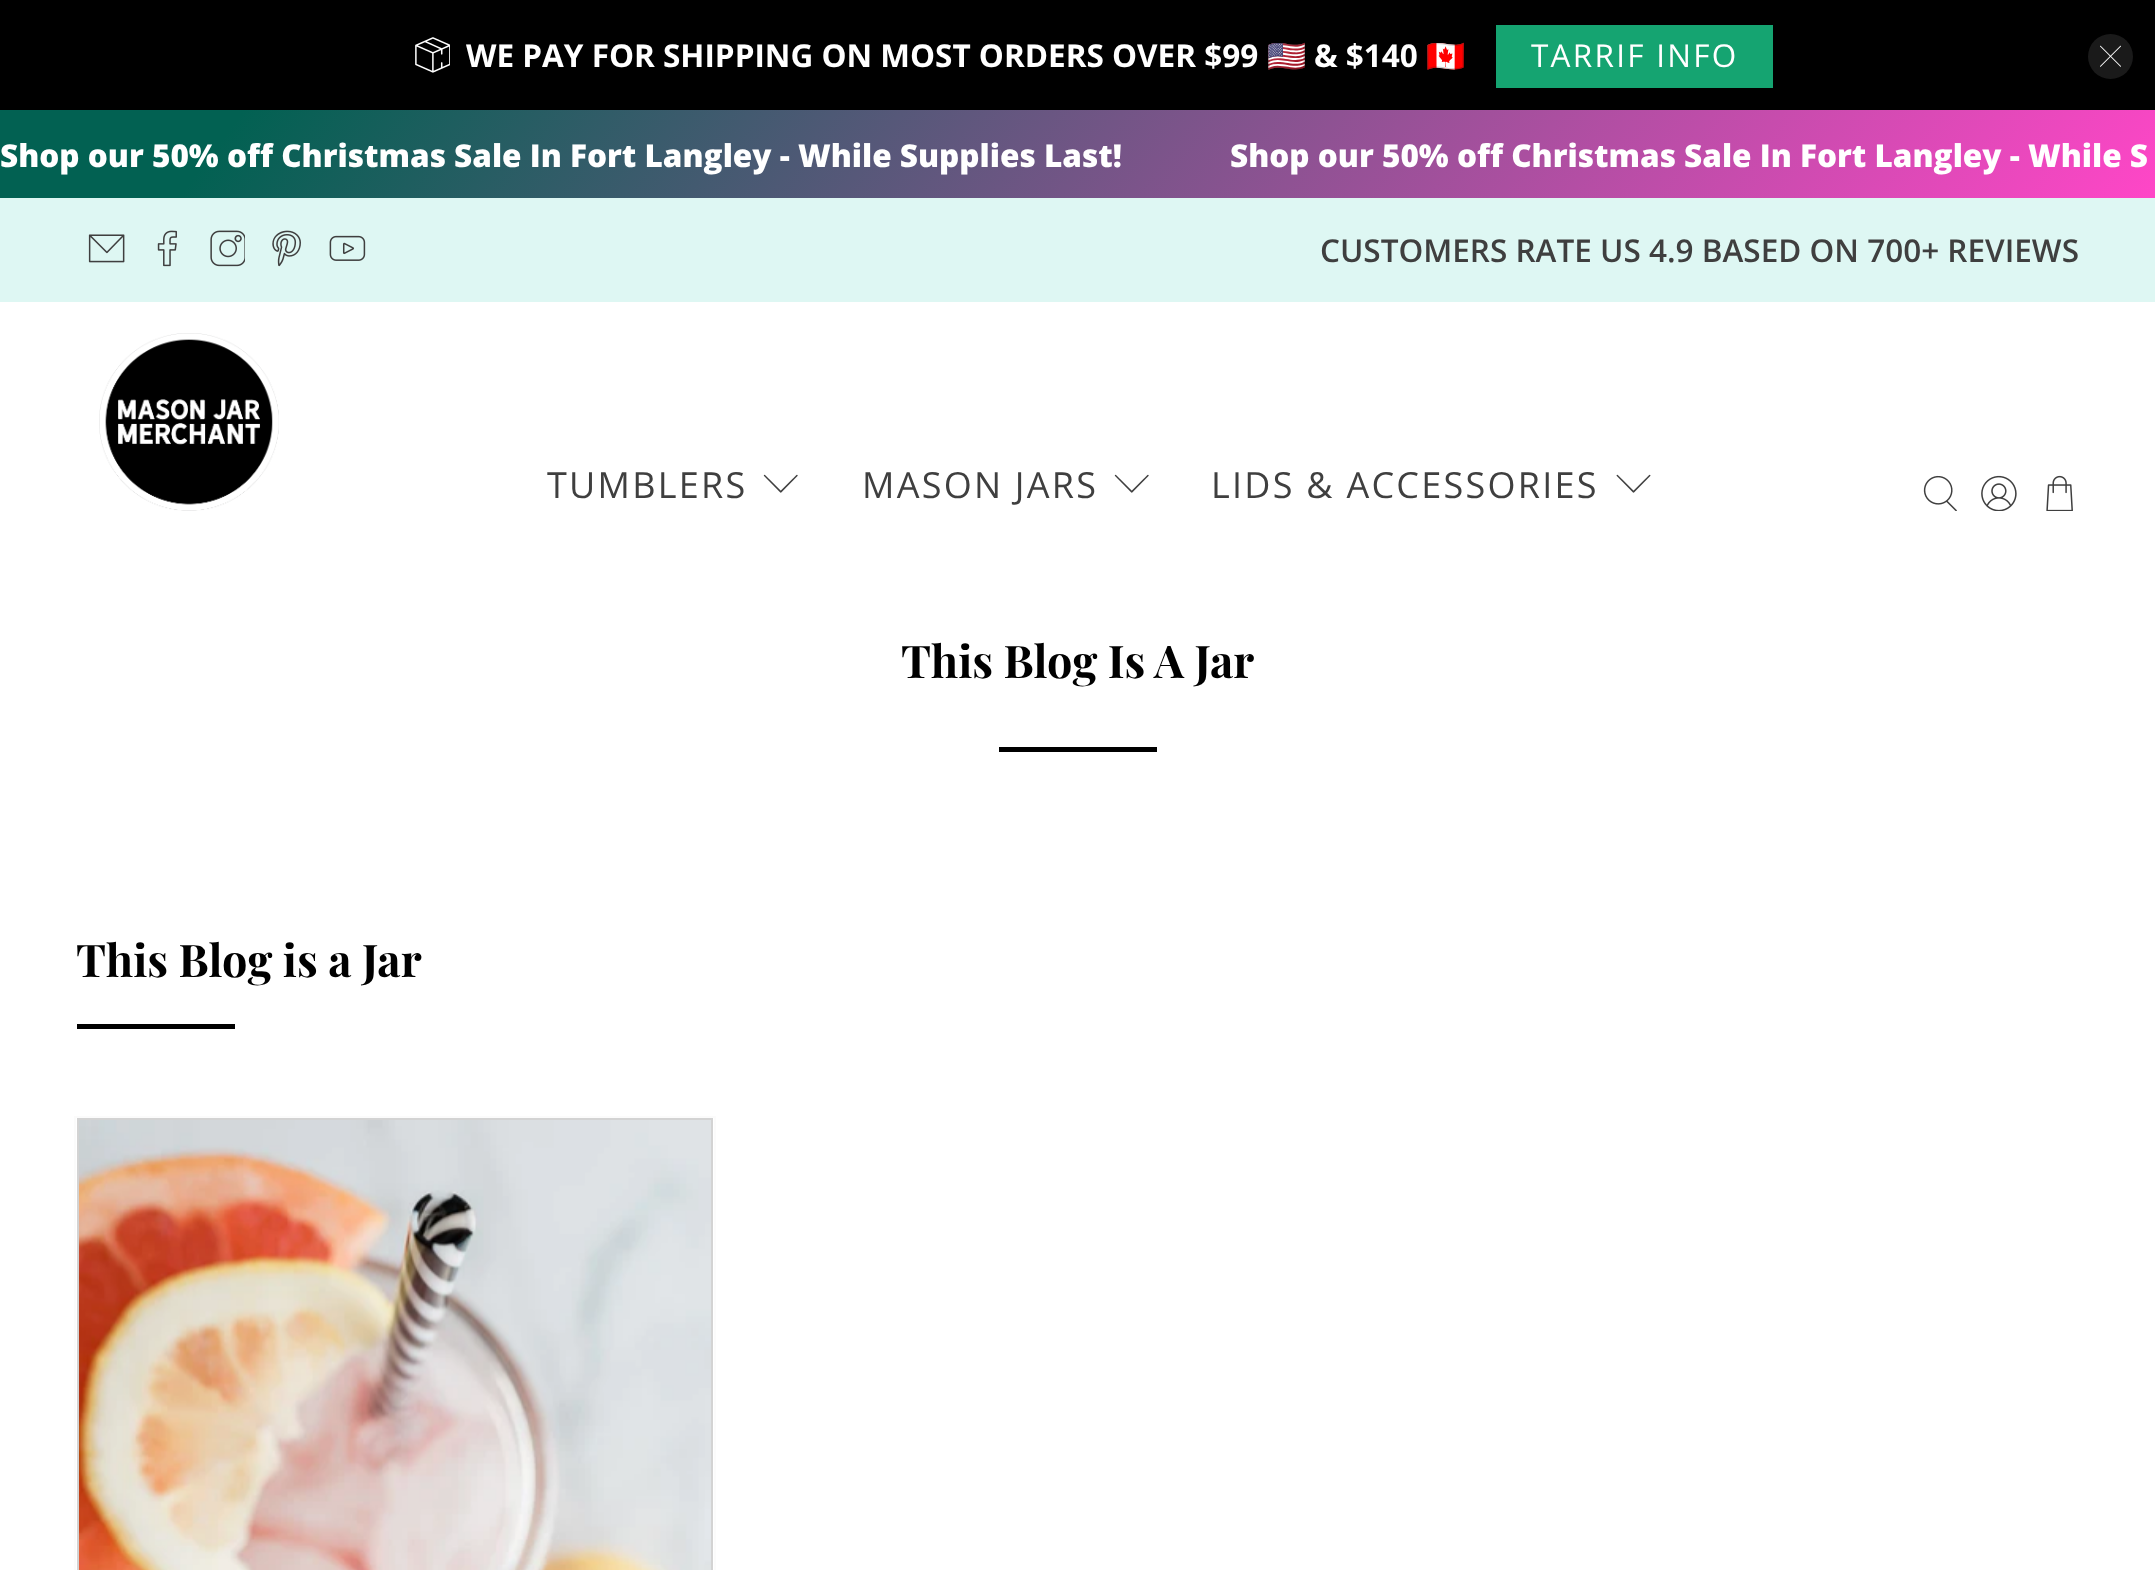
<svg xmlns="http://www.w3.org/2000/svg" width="2155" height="1570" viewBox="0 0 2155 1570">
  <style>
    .t1 { font: bold 31.5px Open Sans; fill: #fff; }
    .t2 { font: bold 31.5px Noto Color Emoji; fill: #fff; }
    .t3 { font: 31.5px Open Sans; letter-spacing: 2.25px; fill: #fff; }
    .t4 { font: 800 31.5px Open Sans; fill: #fff; }
    .t5 { font: 600 31.5px Open Sans; fill: #3f3f3f; }
    .t6 { font: 36px Open Sans; letter-spacing: 2.25px; fill: #3f3f3f; }
    .t7 { font: bold 45px Playfair Display; fill: #000; }
  </style>
  <defs>
    <linearGradient id="g1" gradientUnits="userSpaceOnUse" x1="369" y1="-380" x2="1786" y2="688"><stop offset="0.11" stop-color="#026152"/><stop offset="1" stop-color="#ff46c7"/></linearGradient>
  </defs>
  <rect width="100%" height="100%" fill="#fff"/>
  <rect x="0" y="0" width="2155" height="110" fill="#000"/>
  <image x="415" y="37" width="35" height="36" href="images/1.png"/>
  <text x="466" y="67" class="t1">WE PAY FOR SHIPPING ON MOST ORDERS OVER $99</text>
  <text x="1267" y="67" class="t2">🇺🇸</text>
  <text x="1314" y="67" class="t1">&amp; $140</text>
  <text x="1426" y="67" class="t2">🇨🇦</text>
  <rect x="1496" y="25" width="277" height="63" fill="#15a471"/>
  <text x="1531" y="67" class="t3">TARRIF INFO</text>
  <circle cx="2110.5" cy="56.5" r="22.5" fill="#1a1a1a"/>
  <image x="2100" y="45" width="21" height="22" href="images/2.png"/>
  <rect x="0" y="110" width="2155" height="88" fill="url(#g1)"/>
  <text x="0" y="167" class="t4">Shop our 50% off Christmas Sale In Fort Langley - While Supplies Last!</text>
  <text x="1230" y="167" class="t4">Shop our 50% off Christmas Sale In Fort Langley - While S</text>
  <rect x="0" y="198" width="2155" height="104" fill="#def7f3"/>
  <image x="88" y="234" width="37" height="29" href="images/3.png"/>
  <image x="157" y="230" width="20" height="37" href="images/4.png"/>
  <image x="210" y="230" width="35" height="37" href="images/5.png"/>
  <image x="272" y="230" width="29" height="37" href="images/6.png"/>
  <image x="329" y="235" width="37" height="26" href="images/7.png"/>
  <text x="1320" y="262" class="t5">CUSTOMERS RATE US 4.9 BASED ON 700+ REVIEWS</text>
  <image x="99" y="333" width="180" height="178" href="images/8.png"/>
  <text x="547" y="498" class="t6">TUMBLERS</text>
  <image x="763" y="474" width="35" height="19" href="images/9.png"/>
  <text x="862" y="498" class="t6">MASON JARS</text>
  <image x="1114" y="474" width="35" height="19" href="images/9.png"/>
  <text x="1211" y="498" class="t6">LIDS &amp; ACCESSORIES</text>
  <image x="1616" y="474" width="35" height="19" href="images/10.png"/>
  <image x="1923" y="475" width="34" height="36" href="images/11.png"/>
  <image x="1981" y="475" width="36" height="36" href="images/12.png"/>
  <image x="2046" y="475" width="27" height="36" href="images/13.png"/>
  <text x="901" y="678" class="t7">This Blog Is A Jar</text>
  <rect x="999" y="747" width="158" height="5" fill="#000"/>
  <text x="76" y="977" class="t7">This Blog is a Jar</text>
  <rect x="77" y="1024" width="158" height="5" fill="#000"/>
  <rect x="75" y="1117" width="640" height="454" fill="none" stroke="#fbfbfb" stroke-width="2"/>
  <rect x="78" y="1119" width="634" height="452" fill="none" stroke="#d3d3d3" stroke-width="2"/>
  <image x="79" y="1120" width="632" height="450" href="images/14.png"/>
</svg>
